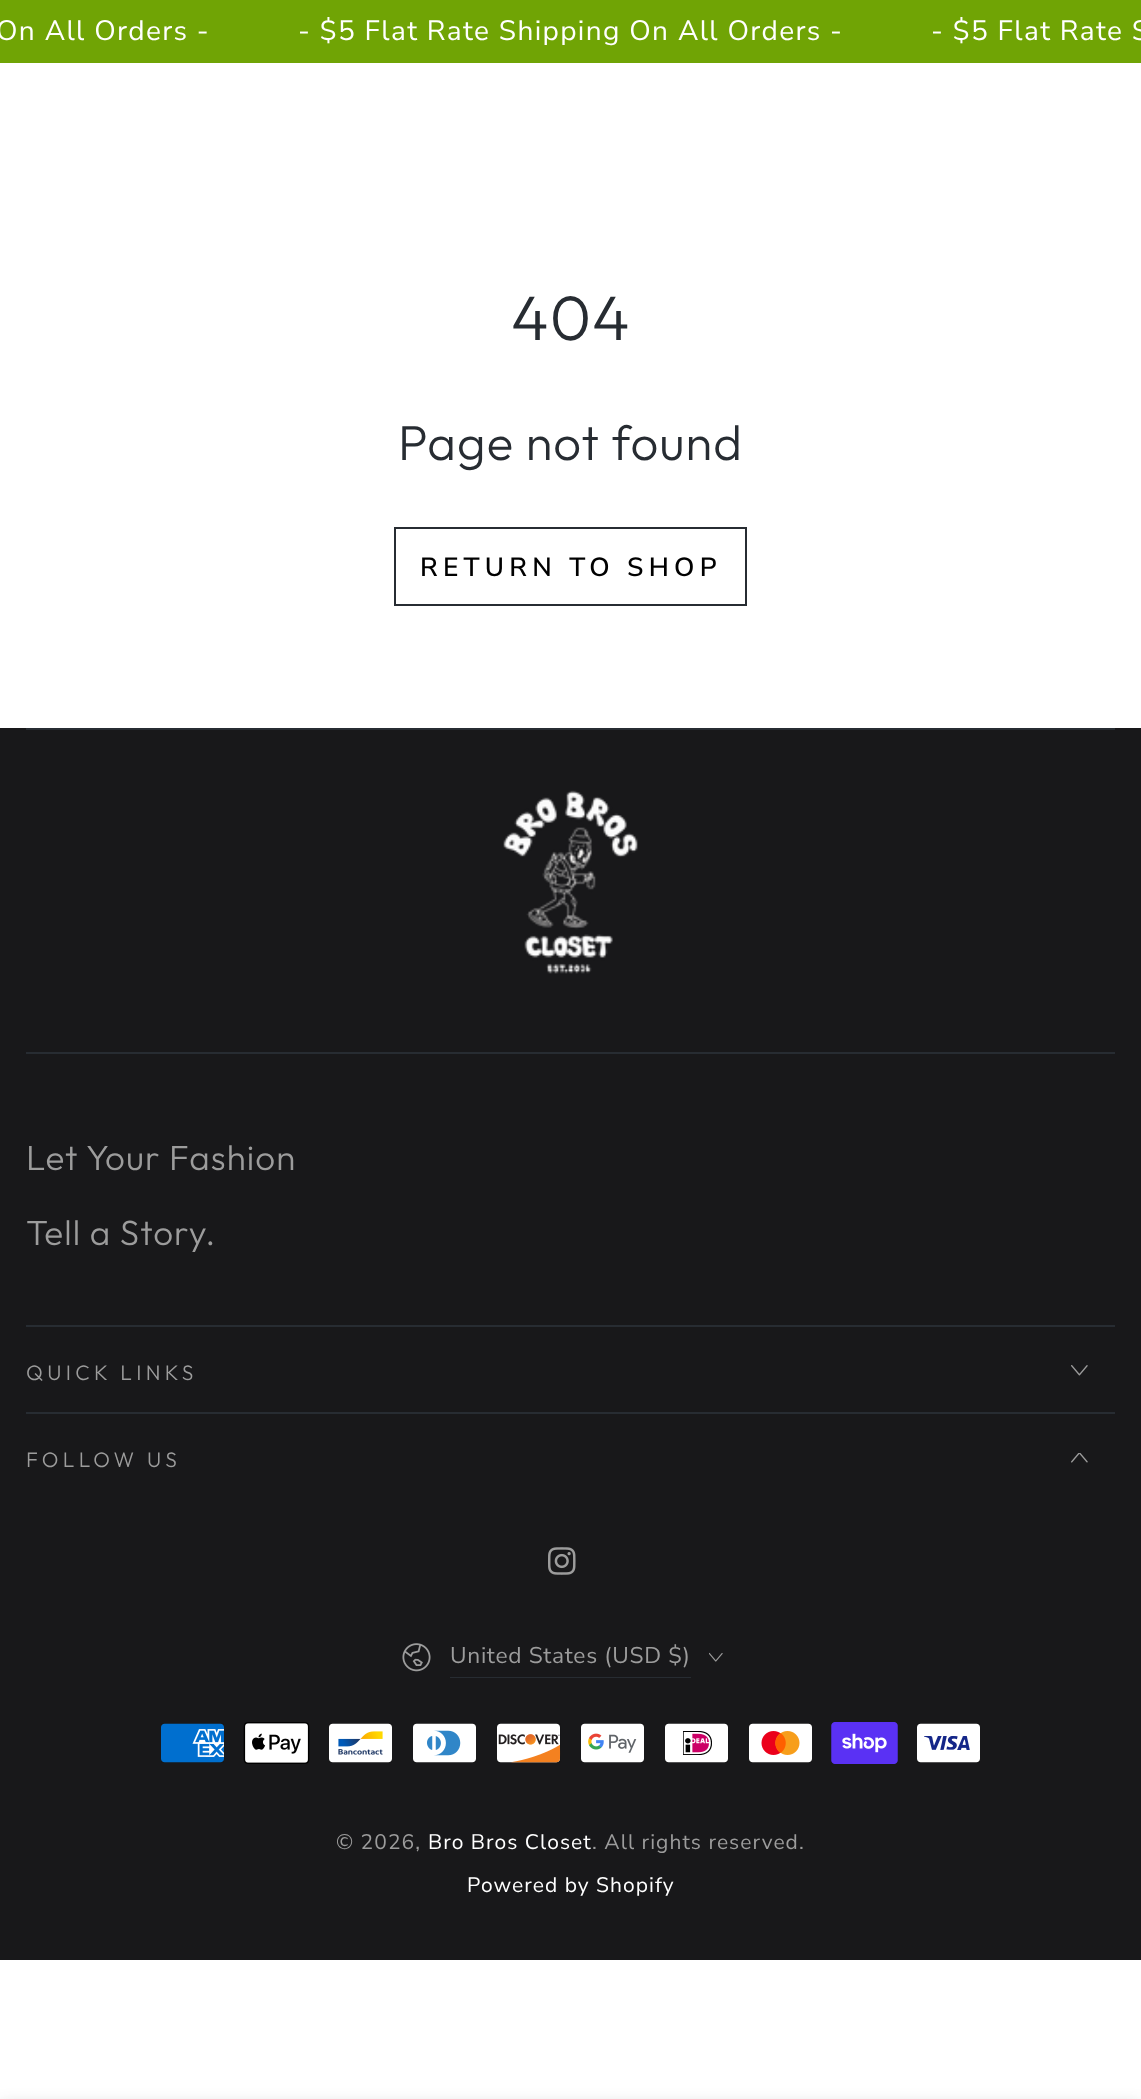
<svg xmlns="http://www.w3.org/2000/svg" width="1141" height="2099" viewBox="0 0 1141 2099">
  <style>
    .t1 { font: 28px Nunito Sans; letter-spacing: 1.35px; fill: #fff; }
    .t2 { font: 300 63px Outfit; letter-spacing: 1.05px; fill: #272c32; }
    .t3 { font: 300 49px Outfit; letter-spacing: 1.05px; fill: #272c32; }
    .t4 { font: 600 26.25px Nunito Sans; letter-spacing: 5.25px; fill: #000; }
    .t5 { font: 300 35px Outfit; letter-spacing: 1.05px; fill: #9c9c9c; }
    .t6 { font: 300 21px Outfit; letter-spacing: 4.25px; fill: #9c9c9c; }
    .t7 { font: 22.75px Nunito Sans; letter-spacing: 0.7px; fill: #9c9c9c; }
    .t8 { font: 21px Nunito Sans; letter-spacing: 1.05px; fill: #9c9c9c; }
    .t9 { font: 21px Nunito Sans; letter-spacing: 1.05px; fill: #fff; }
  </style>
  <rect width="100%" height="100%" fill="#fff"/>
  <rect x="0" y="0" width="1141" height="63" fill="#70a405"/>
  <text x="-4" y="40" class="t1">On All Orders -</text>
  <text x="298" y="40" class="t1">- $5 Flat Rate Shipping On All Orders -</text>
  <text x="931" y="40" class="t1">- $5 Flat Rate S</text>
  <text x="511" y="340" class="t2">404</text>
  <text x="398" y="460" class="t3">Page not found</text>
  <rect x="395" y="528" width="351" height="77" fill="none" stroke="#272c32" stroke-width="2"/>
  <text x="420" y="576" class="t4">RETURN TO SHOP</text>
  <rect x="0" y="728" width="1141" height="1232" fill="#18181a"/>
  <rect x="26" y="728" width="1089" height="2" fill="#272c32"/>
  <rect x="26" y="1052" width="1089" height="2" fill="#272c32"/>
  <image x="503" y="790" width="135" height="184" href="images/1.png"/>
  <rect x="26" y="1325" width="1089" height="2" fill="#272c32"/>
  <text x="26" y="1170" class="t5">Let Your Fashion</text>
  <text x="26" y="1245" class="t5">Tell a Story.</text>
  <rect x="26" y="1412" width="1089" height="2" fill="#272c32"/>
  <text x="26" y="1380" class="t6">QUICK LINKS</text>
  <image x="1071" y="1365" width="17" height="11" href="images/2.png"/>
  <text x="26" y="1467" class="t6">FOLLOW US</text>
  <image x="1071" y="1453" width="17" height="10" href="images/3.png"/>
  <image x="548" y="1547" width="28" height="28" href="images/4.png"/>
  <image x="402" y="1643" width="29" height="29" href="images/5.png"/>
  <rect x="450" y="1677" width="241" height="1" fill="#272c32"/>
  <text x="450" y="1663" class="t7">United States (USD $)</text>
  <image x="709" y="1652" width="14" height="10" href="images/6.png"/>
  <image x="161" y="1723" width="63" height="40" href="images/7.png"/>
  <image x="243" y="1722" width="67" height="42" href="images/8.png"/>
  <image x="329" y="1723" width="63" height="40" href="images/9.png"/>
  <image x="413" y="1723" width="63" height="40" href="images/10.png"/>
  <image x="497" y="1723" width="64" height="40" href="images/11.png"/>
  <image x="581" y="1723" width="63" height="40" href="images/12.png"/>
  <image x="665" y="1723" width="63" height="40" href="images/13.png"/>
  <image x="749" y="1723" width="63" height="40" href="images/14.png"/>
  <image x="831" y="1722" width="67" height="42" href="images/15.png"/>
  <image x="917" y="1723" width="63" height="40" href="images/16.png"/>
  <text x="336" y="1849" class="t8">© 2026,</text>
  <text x="428" y="1849" class="t9">Bro Bros Closet</text>
  <text x="592" y="1849" class="t8">. All rights reserved.</text>
  <text x="467" y="1892" class="t9">Powered by Shopify</text>
  <rect x="0" y="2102" width="1141" height="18" fill="#272c3226" filter="blur(7px)"/>
</svg>
